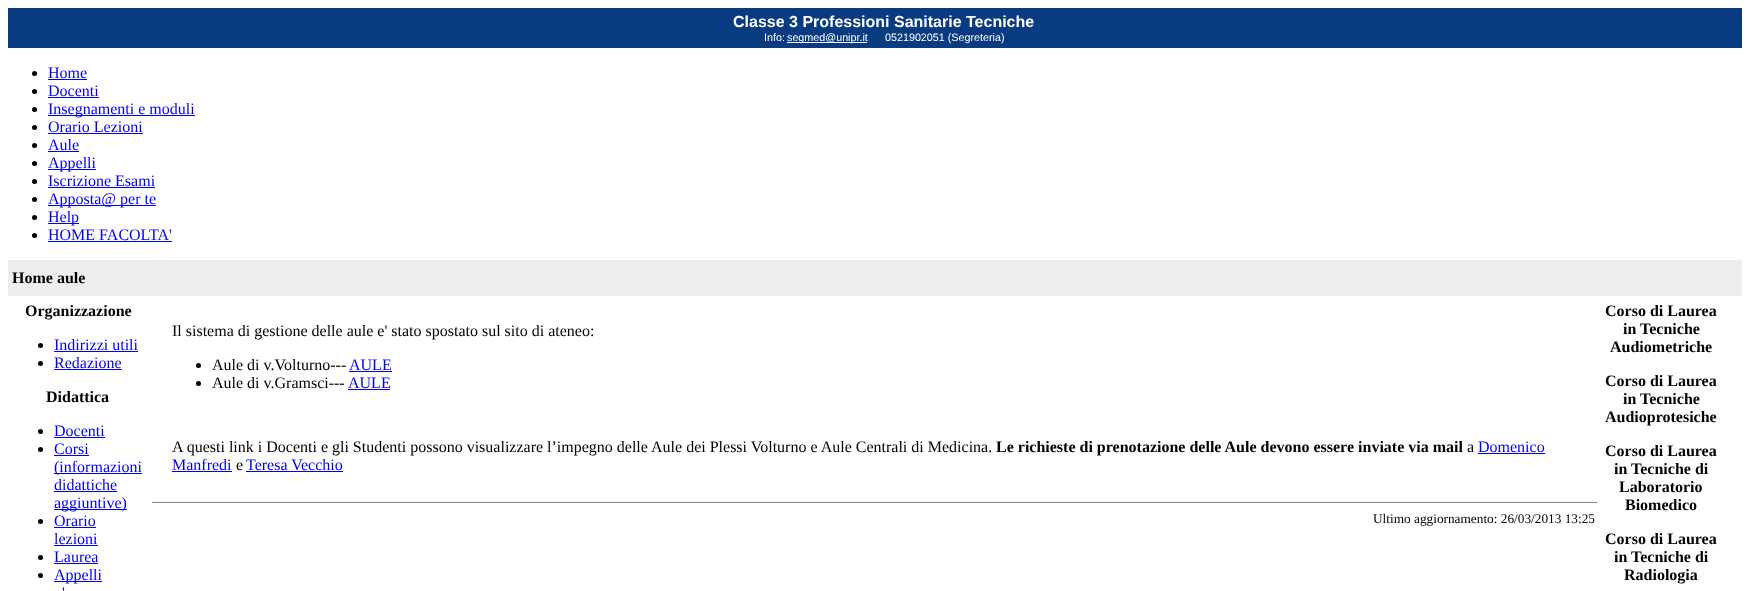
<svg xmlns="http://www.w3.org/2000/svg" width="1750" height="591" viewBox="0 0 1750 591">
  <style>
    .t1 { font: bold 16px Liberation Sans; fill: #fff; }
    .t2 { font: 10.75px Liberation Sans; fill: #fff; }
    .t3 { font: 16px Liberation Serif; fill: #00e; }
    .t4 { font: bold 16px Liberation Serif; fill: #000; }
    .t5 { font: 16px Liberation Serif; fill: #000; }
    .t6 { font: 13.3px Liberation Serif; fill: #000; }
  </style>
  <rect width="100%" height="100%" fill="#fff"/>
  <rect x="8" y="8" width="1734" height="40" fill="#093b81"/>
  <text x="733" y="27" class="t1">Classe 3 Professioni Sanitarie Tecniche</text>
  <text x="764" y="41" class="t2">Info:</text>
  <rect x="787" y="42" width="80" height="1" fill="#fff"/>
  <text x="787" y="41" class="t2">segmed@unipr.it</text>
  <text x="885" y="41" class="t2">0521902051 (Segreteria)</text>
  <circle cx="34.5" cy="73.5" r="2.5" fill="#000"/>
  <text x="48" y="78" class="t3">Home</text>
  <rect x="48" y="79" width="39" height="1" fill="#00e"/>
  <circle cx="34.5" cy="91.5" r="2.5" fill="#000"/>
  <text x="48" y="96" class="t3">Docenti</text>
  <rect x="48" y="97" width="51" height="1" fill="#00e"/>
  <circle cx="34.5" cy="109.5" r="2.5" fill="#000"/>
  <rect x="48" y="115" width="147" height="1" fill="#00e"/>
  <text x="48" y="114" class="t3">Insegnamenti e moduli</text>
  <circle cx="34.5" cy="127.5" r="2.5" fill="#000"/>
  <text x="48" y="132" class="t3">Orario Lezioni</text>
  <rect x="48" y="133" width="95" height="1" fill="#00e"/>
  <circle cx="34.5" cy="145.5" r="2.5" fill="#000"/>
  <text x="48" y="150" class="t3">Aule</text>
  <rect x="48" y="151" width="31" height="1" fill="#00e"/>
  <circle cx="34.5" cy="163.5" r="2.5" fill="#000"/>
  <rect x="48" y="169" width="48" height="1" fill="#00e"/>
  <text x="48" y="168" class="t3">Appelli</text>
  <circle cx="34.5" cy="181.5" r="2.5" fill="#000"/>
  <text x="48" y="186" class="t3">Iscrizione Esami</text>
  <rect x="48" y="187" width="107" height="1" fill="#00e"/>
  <circle cx="34.5" cy="199.5" r="2.5" fill="#000"/>
  <rect x="48" y="205" width="108" height="1" fill="#00e"/>
  <text x="48" y="204" class="t3">Apposta@ per te</text>
  <circle cx="34.5" cy="217.5" r="2.5" fill="#000"/>
  <rect x="48" y="223" width="31" height="1" fill="#00e"/>
  <text x="48" y="222" class="t3">Help</text>
  <circle cx="34.5" cy="235.5" r="2.5" fill="#000"/>
  <text x="48" y="240" class="t3">HOME FACOLTA'</text>
  <rect x="48" y="241" width="124" height="1" fill="#00e"/>
  <rect x="8" y="260" width="1734" height="36" fill="#eee"/>
  <text x="12" y="283" class="t4">Home aule</text>
  <text x="25" y="316" class="t4">Organizzazione</text>
  <circle cx="40.5" cy="345.5" r="2.5" fill="#000"/>
  <text x="54" y="350" class="t3">Indirizzi utili</text>
  <rect x="54" y="351" width="84" height="1" fill="#00e"/>
  <circle cx="40.5" cy="363.5" r="2.5" fill="#000"/>
  <text x="54" y="368" class="t3">Redazione</text>
  <rect x="54" y="369" width="68" height="1" fill="#00e"/>
  <text x="46" y="402" class="t4">Didattica</text>
  <circle cx="40.5" cy="431.5" r="2.5" fill="#000"/>
  <text x="54" y="436" class="t3">Docenti</text>
  <rect x="54" y="437" width="51" height="1" fill="#00e"/>
  <circle cx="40.5" cy="449.5" r="2.5" fill="#000"/>
  <text x="54" y="454" class="t3">Corsi</text>
  <rect x="54" y="455" width="35" height="1" fill="#00e"/>
  <rect x="54" y="473" width="88" height="1" fill="#00e"/>
  <text x="54" y="472" class="t3">(informazioni</text>
  <text x="54" y="490" class="t3">didattiche</text>
  <rect x="54" y="491" width="63" height="1" fill="#00e"/>
  <rect x="54" y="509" width="73" height="1" fill="#00e"/>
  <text x="54" y="508" class="t3">aggiuntive)</text>
  <circle cx="40.5" cy="521.5" r="2.5" fill="#000"/>
  <text x="54" y="526" class="t3">Orario</text>
  <rect x="54" y="527" width="42" height="1" fill="#00e"/>
  <text x="54" y="544" class="t3">lezioni</text>
  <rect x="54" y="545" width="44" height="1" fill="#00e"/>
  <circle cx="40.5" cy="557.5" r="2.5" fill="#000"/>
  <text x="54" y="562" class="t3">Laurea</text>
  <rect x="54" y="563" width="44" height="1" fill="#00e"/>
  <circle cx="40.5" cy="575.5" r="2.5" fill="#000"/>
  <rect x="54" y="581" width="48" height="1" fill="#00e"/>
  <text x="54" y="580" class="t3">Appelli</text>
  <text x="62" y="598" class="t3">'</text>
  <text x="172" y="336" class="t5">Il sistema di gestione delle aule e' stato spostato sul sito di ateneo:</text>
  <circle cx="198.5" cy="365.5" r="2.5" fill="#000"/>
  <text x="212" y="370" class="t5">Aule di v.Volturno---</text>
  <text x="349" y="370" class="t3">AULE</text>
  <rect x="349" y="371" width="43" height="1" fill="#00e"/>
  <circle cx="198.5" cy="383.5" r="2.5" fill="#000"/>
  <text x="212" y="388" class="t5">Aule di v.Gramsci---</text>
  <text x="348" y="388" class="t3">AULE</text>
  <rect x="348" y="389" width="42" height="1" fill="#00e"/>
  <text x="172" y="452" class="t5">A questi link i Docenti e gli Studenti possono visualizzare l’impegno delle Aule dei Plessi Volturno e Aule Centrali di Medicina.</text>
  <text x="996" y="452" class="t4">Le richieste di prenotazione delle Aule devono essere inviate via mail</text>
  <text x="1467" y="452" class="t5">a</text>
  <text x="1478" y="452" class="t3">Domenico</text>
  <rect x="1478" y="453" width="67" height="1" fill="#00e"/>
  <text x="172" y="470" class="t3">Manfredi</text>
  <rect x="172" y="471" width="60" height="1" fill="#00e"/>
  <text x="236" y="470" class="t5">e</text>
  <text x="246" y="470" class="t3">Teresa Vecchio</text>
  <rect x="246" y="471" width="97" height="1" fill="#00e"/>
  <rect x="152" y="502" width="1445" height="1" fill="#808080"/>
  <text x="1373" y="523" class="t6">Ultimo aggiornamento: 26/03/2013 13:25</text>
  <text x="1605" y="316" class="t4">Corso di Laurea</text>
  <text x="1623" y="334" class="t4">in Tecniche</text>
  <text x="1610" y="352" class="t4">Audiometriche</text>
  <text x="1605" y="386" class="t4">Corso di Laurea</text>
  <text x="1623" y="404" class="t4">in Tecniche</text>
  <text x="1605" y="422" class="t4">Audioprotesiche</text>
  <text x="1605" y="456" class="t4">Corso di Laurea</text>
  <text x="1614" y="474" class="t4">in Tecniche di</text>
  <text x="1619" y="492" class="t4">Laboratorio</text>
  <text x="1625" y="510" class="t4">Biomedico</text>
  <text x="1605" y="544" class="t4">Corso di Laurea</text>
  <text x="1614" y="562" class="t4">in Tecniche di</text>
  <text x="1624" y="580" class="t4">Radiologia</text>
</svg>
